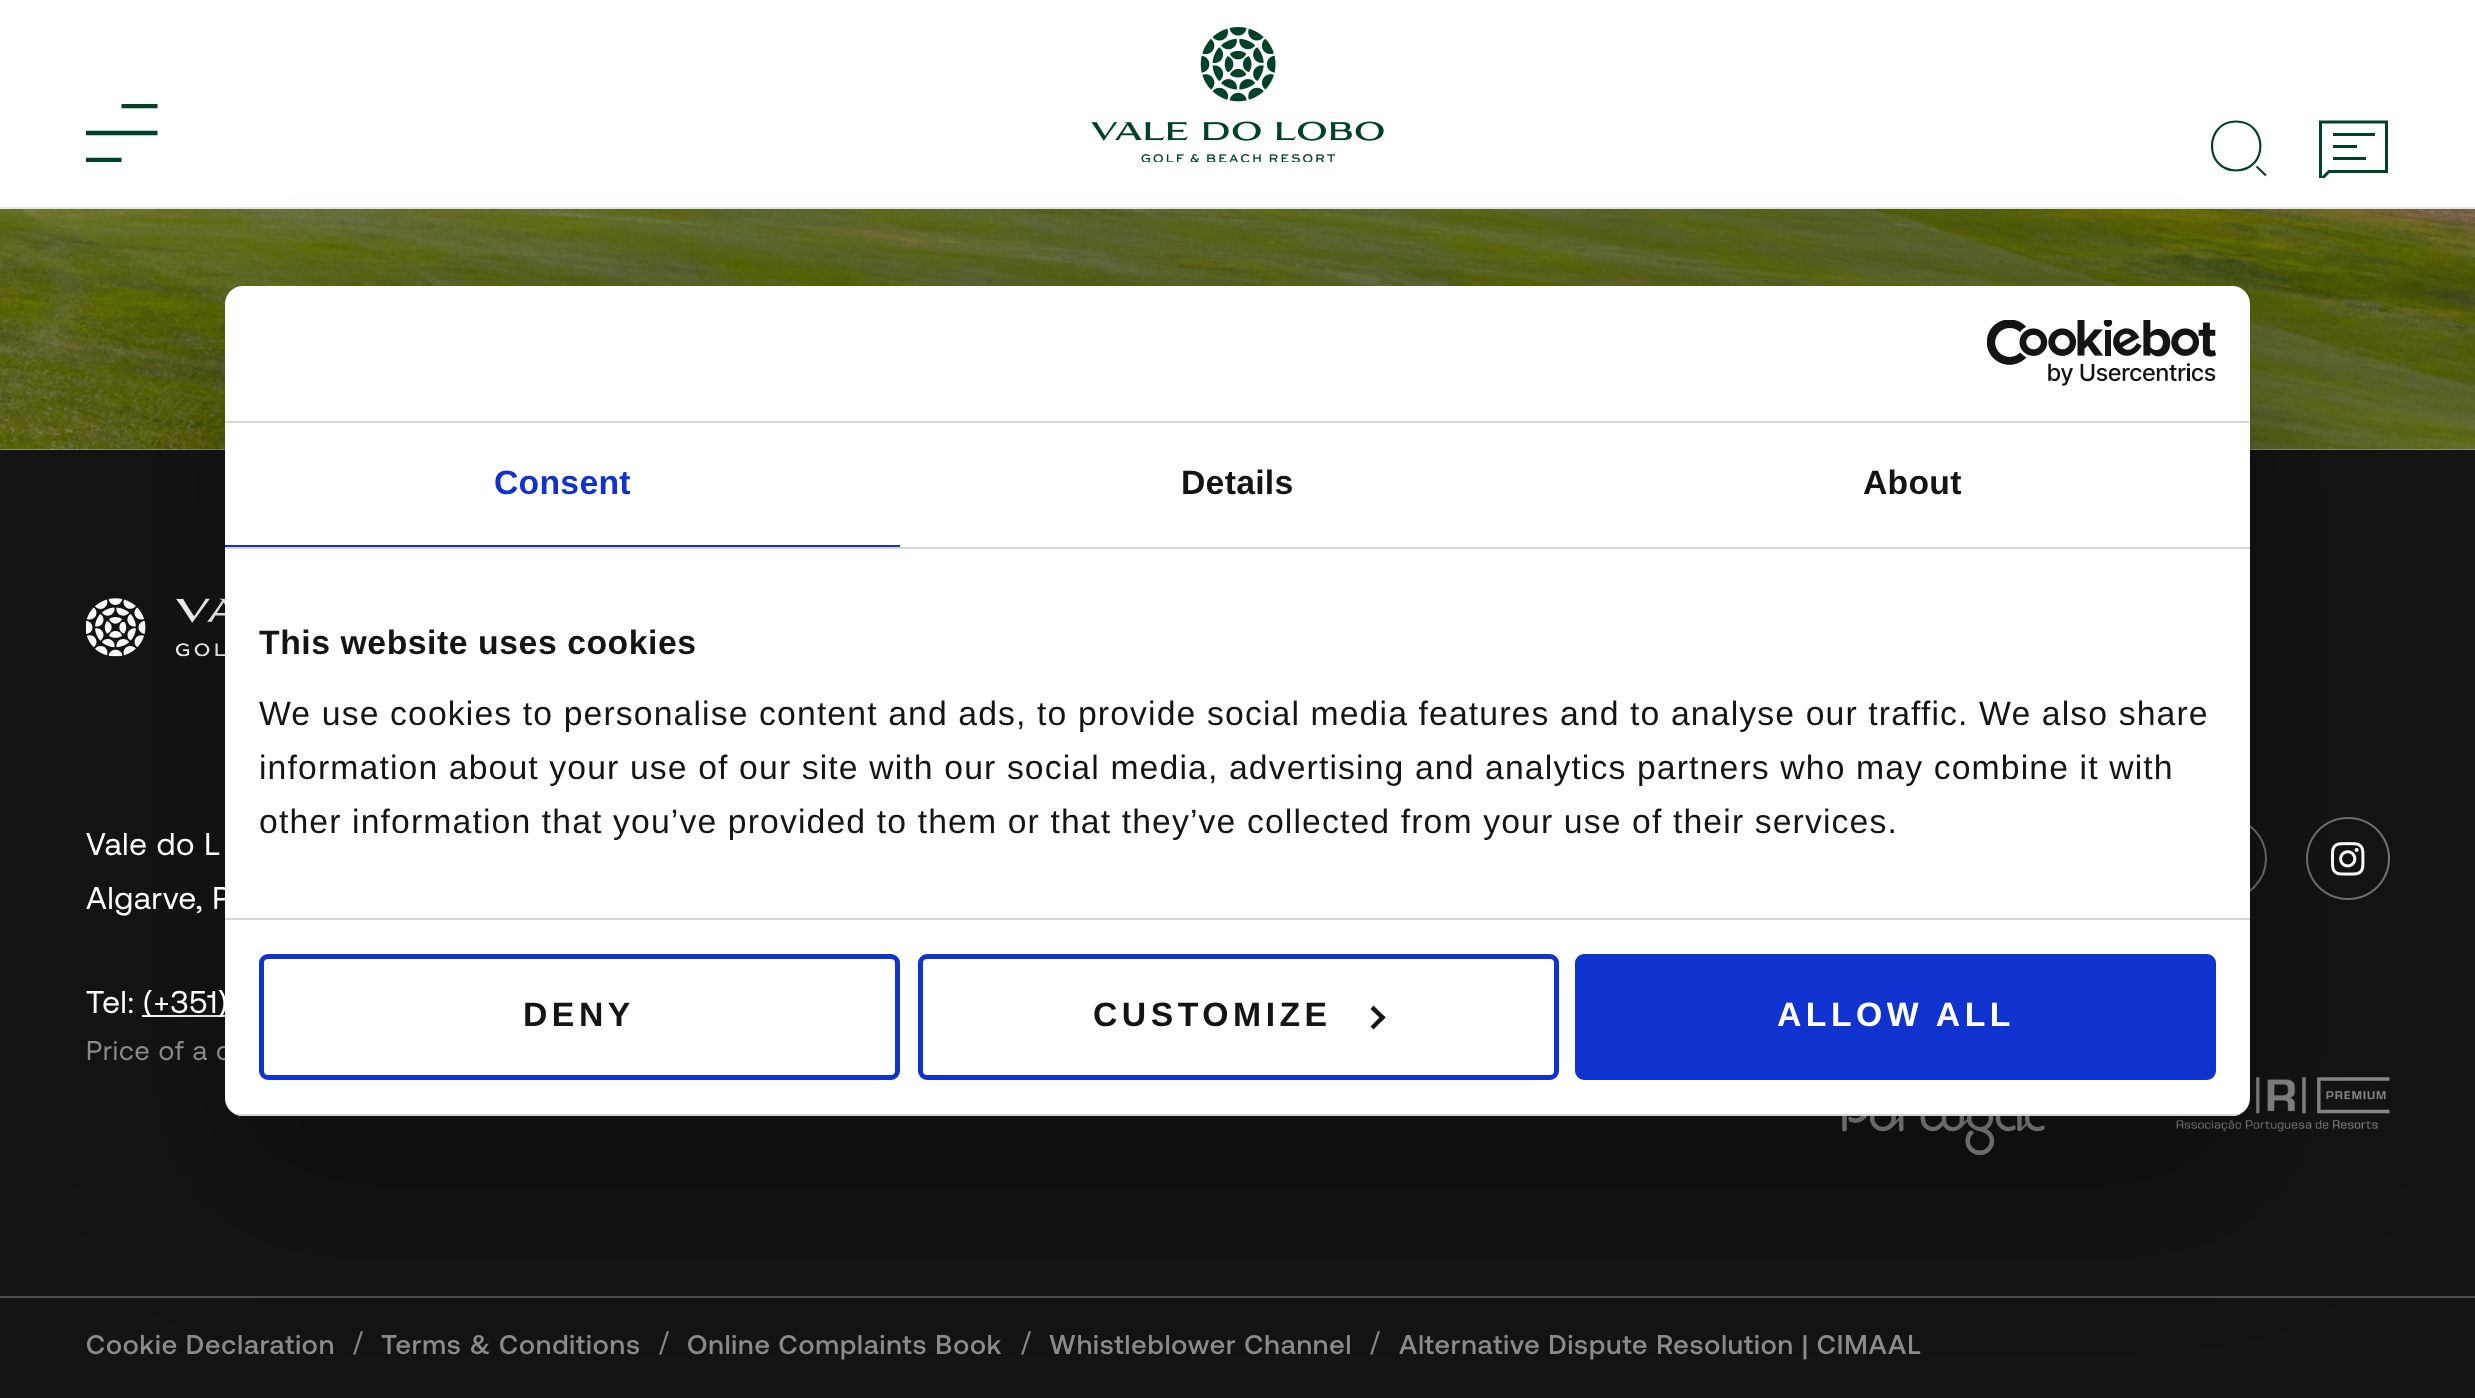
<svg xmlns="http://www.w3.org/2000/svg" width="2475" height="1398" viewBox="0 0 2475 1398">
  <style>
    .t1 { font: 27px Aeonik; letter-spacing: 0.9px; fill: #8a8a8a; }
    .t2 { font: bold 33.75px Liberation Sans; letter-spacing: 0.25px; fill: #1032cf; }
    .t3 { font: bold 33.75px Liberation Sans; letter-spacing: 0.25px; fill: #141414; }
    .t4 { font: bold 33.75px Liberation Sans; letter-spacing: 0.55px; fill: #141414; }
    .t5 { font: 33.75px Liberation Sans; letter-spacing: 1.12px; fill: #141414; }
    .t6 { font: bold 33.75px Liberation Sans; letter-spacing: 4.5px; fill: #141414; }
    .t7 { font: bold 33.75px Liberation Sans; letter-spacing: 4.5px; fill: #fff; }
    .t8 { font: 31.5px Aeonik; letter-spacing: 0.75px; fill: #fff; }
    .t9 { font: 500 27px Aeonik; letter-spacing: 0.9px; fill: #8a8a8a; }
  </style>
  <defs>
    <clipPath id="clip1"><rect x="86" y="104" width="72" height="58"/></clipPath>
    <clipPath id="clip2"><rect x="2318" y="119" width="72" height="59"/></clipPath>
    <clipPath id="clip3"><rect x="225" y="286" width="2025" height="830" rx="18"/></clipPath>
  </defs>
  <rect width="100%" height="100%" fill="#b6b6b6"/>
  <rect x="0" y="0" width="2475" height="207" fill="#fff"/>
  <rect x="0" y="207" width="2475" height="2" fill="#e0e8e5"/>
  <g clip-path="url(#clip1)">
    <path d="M121.5 106H157.5" fill="none" stroke="#004225" stroke-width="4.5"/>
    <path d="M85.5 133H157.5" fill="none" stroke="#004225" stroke-width="4.5"/>
    <path d="M85.5 160H121.5" fill="none" stroke="#004225" stroke-width="4.5"/>
  </g>
  <image x="1091" y="27" width="293" height="135" href="images/1.png"/>
  <path d="M2256.5 166.5L2266 175.5M2236 121.5C2268.5 121.5 2268.5 170.5 2236 170.5C2204 170.5 2204 121.5 2236 121.5Z" fill="none" stroke="#004225" stroke-width="2.2"/>
  <g clip-path="url(#clip2)">
    <path d="M2386.5 171.5H2329L2320.5 180V122H2386.5Z" fill="none" stroke="#004225" stroke-width="3"/>
  </g>
  <rect x="2333" y="133" width="42" height="3" fill="#004225"/>
  <rect x="2333" y="145" width="24" height="3" fill="#004225"/>
  <rect x="2333" y="157" width="33" height="3" fill="#004225"/>
  <image x="0" y="209" width="2475" height="241" href="images/2.png"/>
  <rect x="0" y="450" width="2475" height="948" fill="#141414"/>
  <image x="86" y="598" width="139" height="59" href="images/4.png"/>
  <rect x="142" y="1015" width="83" height="2" fill="#fff"/>
  <rect x="2184" y="818" width="82" height="81" rx="40.5" fill="none" stroke="#727272" stroke-width="2"/>
  <image x="2306" y="817" width="84" height="83" href="images/5.png"/>
  <image x="1842" y="1116" width="203" height="39" href="images/6.png"/>
  <image x="2176" y="1077" width="214" height="55" href="images/7.png"/>
  <rect x="0" y="1296" width="2475" height="2" fill="#4d4d4d"/>
  <rect x="225" y="358" width="2025" height="830" rx="18" fill="#0000004d" filter="blur(76.5px)"/>
  <text x="86" y="1060" class="t1">Price of a c</text>
  <rect x="225" y="286" width="2025" height="830" rx="18" fill="#fff"/>
  <rect x="225" y="421" width="2025" height="2" fill="#d6d6d6"/>
  <image x="1987" y="320" width="229" height="66" href="images/3.png"/>
  <rect x="225" y="547" width="2025" height="2" fill="#d6d6d6"/>
  <rect x="225" y="545" width="675" height="2" fill="#1032cf"/>
  <text x="494" y="494" class="t2">Consent</text>
  <text x="1181" y="494" class="t3">Details</text>
  <text x="1863" y="494" class="t3">About</text>
  <rect x="225" y="918" width="2025" height="2" fill="#d6d6d6"/>
  <text x="259" y="654" class="t4">This website uses cookies</text>
  <text x="259" y="725" class="t5">We use cookies to personalise content and ads, to provide social media features and to analyse our traffic. We also share</text>
  <text x="259" y="779" class="t5">information about your use of our site with our social media, advertising and analytics partners who may combine it with</text>
  <text x="259" y="833" class="t5">other information that you’ve provided to them or that they’ve collected from your use of their services.</text>
  <g clip-path="url(#clip3)">
    <rect x="235" y="1114" width="2005" height="2" fill="#d6d6d6"/>
  </g>
  <rect x="261.5" y="956.5" width="636" height="121" rx="6.5" fill="none" stroke="#1032cf" stroke-width="5"/>
  <text x="523" y="1026" class="t6">DENY</text>
  <rect x="920.5" y="956.5" width="636" height="121" rx="6.5" fill="none" stroke="#1032cf" stroke-width="5"/>
  <text x="1093" y="1026" class="t6">CUSTOMIZE</text>
  <path d="M1373.5 1005.5L1385.5 1017.5L1382.5 1020.5L1370.5 1009Z" fill="#141414"/>
  <path d="M1382.5 1014.5L1385.5 1017.5L1373.5 1029.5L1370.5 1026.5Z" fill="#141414"/>
  <rect x="1577.5" y="956.5" width="636" height="121" rx="6.5" fill="#1032cf" stroke="#1032cf" stroke-width="5"/>
  <text x="1777" y="1026" class="t7">ALLOW ALL</text>
  <text x="86" y="855" class="t8">Vale do L</text>
  <text x="86" y="909" class="t8">Algarve, P</text>
  <text x="86" y="1013" class="t8">Tel:</text>
  <text x="143" y="1013" class="t8">(+351)</text>
  <text x="86" y="1354" class="t9">Cookie Declaration</text>
  <text x="353" y="1351" class="t1">/</text>
  <text x="381" y="1354" class="t9">Terms &amp; Conditions</text>
  <text x="659" y="1351" class="t1">/</text>
  <text x="687" y="1354" class="t9">Online Complaints Book</text>
  <text x="1021" y="1351" class="t1">/</text>
  <text x="1049" y="1354" class="t9">Whistleblower Channel</text>
  <text x="1370" y="1351" class="t1">/</text>
  <text x="1399" y="1354" class="t9">Alternative Dispute Resolution | CIMAAL</text>
</svg>
